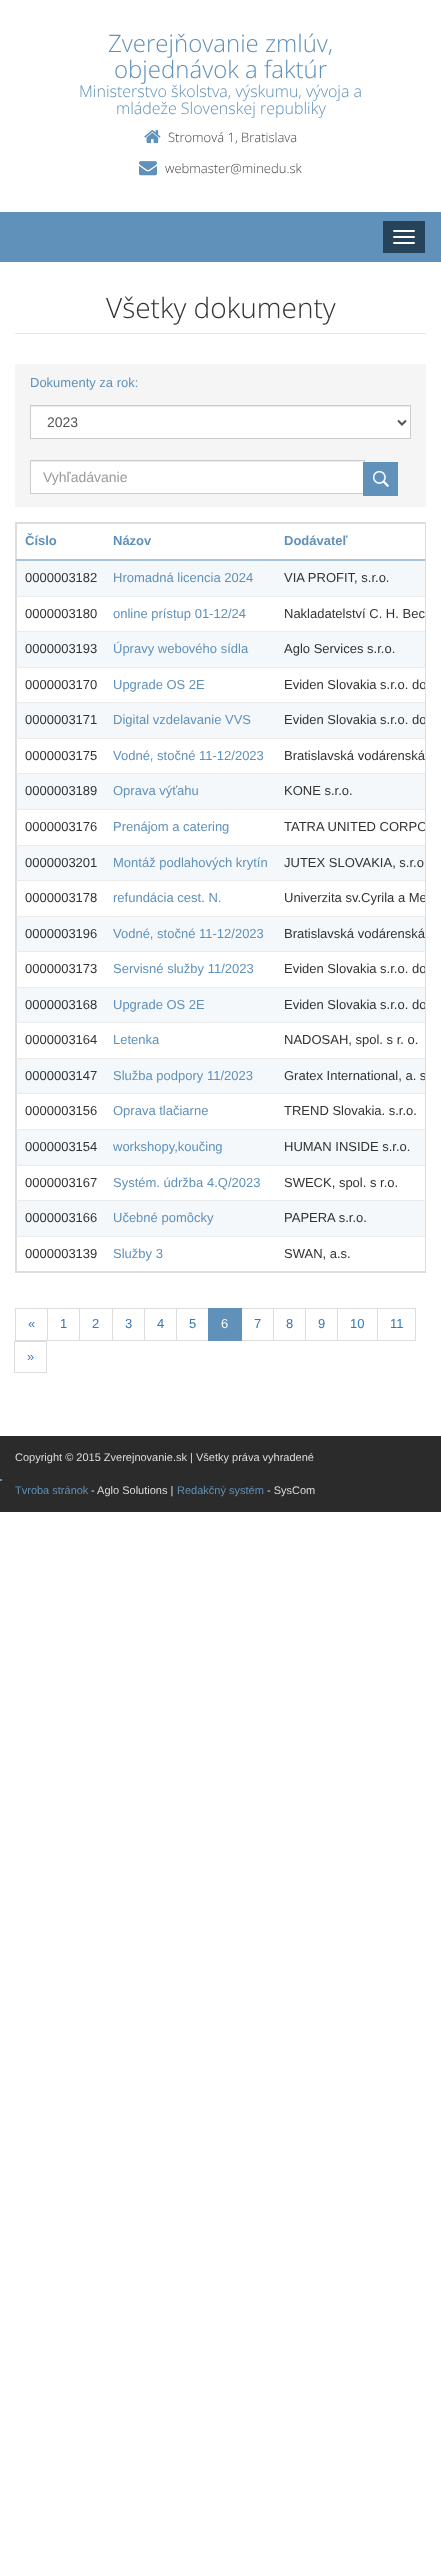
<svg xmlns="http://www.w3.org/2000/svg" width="441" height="2551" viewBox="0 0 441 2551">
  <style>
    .t1 { font: 300 24px Open Sans; fill: #6091ba; }
    .t2 { font: 300 16px Open Sans; fill: #6091ba; }
    .t3 { font: 300 13px Open Sans; fill: #444; }
    .t4 { font: 300 28px Open Sans; fill: #333; }
    .t5 { font: 13px Liberation Sans; fill: #6091ba; }
    .t6 { font: 14px Liberation Sans; fill: #555; }
    .t7 { font: 14px Liberation Sans; fill: #999; }
    .t8 { font: bold 13px Liberation Sans; fill: #6091ba; }
    .t9 { font: 13px Liberation Sans; fill: #333; }
    .t10 { font: 13px Liberation Sans; fill: #337ab7; }
    .t11 { font: 13px Liberation Sans; fill: #fff; }
    .t12 { font: 11px Liberation Sans; fill: #dcdcdc; }
    .t13 { font: 11px Liberation Sans; fill: #6091ba; }
  </style>
  <defs>
    <clipPath id="clip1"><rect x="16" y="523" width="409" height="749"/></clipPath>
  </defs>
  <rect width="100%" height="100%" fill="#fff"/>
  <text x="108" y="52" class="t1">Zverejňovanie zmlúv,</text>
  <text x="114" y="78" class="t1">objednávok a faktúr</text>
  <text x="79" y="97" class="t2">Ministerstvo školstva, výskumu, vývoja a</text>
  <text x="116" y="114" class="t2">mládeže Slovenskej republiky</text>
  <image x="144" y="130" width="17" height="13" href="images/1.png"/>
  <text x="168" y="142" class="t3">Stromová 1, Bratislava</text>
  <image x="139" y="161" width="18" height="15" href="images/2.png"/>
  <text x="165" y="173" class="t3">webmaster@minedu.sk</text>
  <rect x="0" y="212" width="441" height="50" fill="#6091ba"/>
  <rect x="383" y="221" width="42" height="32" fill="#27435a"/>
  <rect x="393" y="230" width="22" height="2" rx="1" fill="#fff"/>
  <rect x="393" y="236" width="22" height="2" rx="1" fill="#fff"/>
  <rect x="393" y="242" width="22" height="2" rx="1" fill="#fff"/>
  <rect x="15" y="333" width="411" height="1" fill="#e8e8e8"/>
  <text x="106" y="318" class="t4">Všetky dokumenty</text>
  <rect x="15" y="364" width="411" height="143" fill="#f5f5f5"/>
  <text x="30" y="387" class="t5">Dokumenty za rok:</text>
  <rect x="31" y="407" width="379" height="31" fill="#fff"/>
  <rect x="31" y="406" width="379" height="1" fill="#ececec"/>
  <rect x="30.5" y="405.5" width="380" height="33" fill="none" stroke="#ccc"/>
  <path d="M398 420.5L402 424.5L406 420.5" fill="none" stroke="#555" stroke-width="2"/>
  <text x="47" y="427" class="t6">2023</text>
  <rect x="31" y="462" width="332" height="31" fill="#fff"/>
  <rect x="31" y="461" width="333" height="1" fill="#ececec"/>
  <rect x="30.5" y="460.5" width="334" height="33" fill="none" stroke="#ccc"/>
  <text x="43" y="482" class="t7">Vyhľadávanie</text>
  <rect x="363" y="462" width="35" height="34" fill="#6091ba"/>
  <image x="373" y="471" width="16" height="16" href="images/3.png"/>
  <rect x="15.5" y="522.5" width="410" height="750" fill="none" stroke="#ddd"/>
  <rect x="16" y="523" width="409" height="1" fill="#ddd"/>
  <rect x="16" y="1271" width="409" height="1" fill="#ddd"/>
  <rect x="16" y="523" width="1" height="749" fill="#ddd"/>
  <text x="25" y="545" class="t8">Číslo</text>
  <text x="113" y="545" class="t8">Názov</text>
  <rect x="16" y="559" width="409" height="2" fill="#a7c2d9"/>
  <text x="284" y="545" class="t8">Dodávateľ</text>
  <rect x="17" y="561" width="408" height="35" fill="#f5f8fb"/>
  <text x="25" y="582" class="t9">0000003182</text>
  <text x="113" y="582" class="t5">Hromadná licencia 2024</text>
  <text x="284" y="582" class="t9">VIA PROFIT, s.r.o.</text>
  <text x="25" y="618" class="t9">0000003180</text>
  <text x="113" y="618" class="t5">online prístup 01-12/24</text>
  <rect x="16" y="596" width="409" height="1" fill="#ebebeb"/>
  <text x="284" y="618" class="t9">Nakladatelství C. H. Bec</text>
  <rect x="17" y="632" width="408" height="35" fill="#f5f8fb"/>
  <text x="25" y="653" class="t9">0000003193</text>
  <text x="113" y="653" class="t5">Úpravy webového sídla</text>
  <rect x="16" y="631" width="409" height="1" fill="#ebebeb"/>
  <text x="284" y="653" class="t9">Aglo Services s.r.o.</text>
  <text x="25" y="689" class="t9">0000003170</text>
  <text x="113" y="689" class="t5">Upgrade OS 2E</text>
  <rect x="16" y="667" width="409" height="1" fill="#ebebeb"/>
  <g clip-path="url(#clip1)">
    <text x="284" y="689" class="t9">Eviden Slovakia s.r.o. do</text>
  </g>
  <rect x="17" y="703" width="408" height="35" fill="#f5f8fb"/>
  <text x="25" y="724" class="t9">0000003171</text>
  <text x="113" y="724" class="t5">Digital vzdelavanie VVS</text>
  <rect x="16" y="702" width="409" height="1" fill="#ebebeb"/>
  <g clip-path="url(#clip1)">
    <text x="284" y="724" class="t9">Eviden Slovakia s.r.o. do</text>
  </g>
  <text x="25" y="760" class="t9">0000003175</text>
  <text x="113" y="760" class="t5">Vodné, stočné 11-12/2023</text>
  <rect x="16" y="738" width="409" height="1" fill="#ebebeb"/>
  <text x="284" y="760" class="t9">Bratislavská vodárenská</text>
  <rect x="17" y="774" width="408" height="35" fill="#f5f8fb"/>
  <text x="25" y="795" class="t9">0000003189</text>
  <text x="113" y="795" class="t5">Oprava výťahu</text>
  <rect x="16" y="773" width="409" height="1" fill="#ebebeb"/>
  <text x="284" y="795" class="t9">KONE s.r.o.</text>
  <text x="25" y="831" class="t9">0000003176</text>
  <text x="113" y="831" class="t5">Prenájom a catering</text>
  <rect x="16" y="809" width="409" height="1" fill="#ebebeb"/>
  <g clip-path="url(#clip1)">
    <text x="284" y="831" class="t9">TATRA UNITED CORPO</text>
  </g>
  <rect x="17" y="846" width="408" height="34" fill="#f5f8fb"/>
  <text x="25" y="867" class="t9">0000003201</text>
  <text x="113" y="867" class="t5">Montáž podlahových krytín</text>
  <rect x="16" y="845" width="409" height="1" fill="#ebebeb"/>
  <text x="284" y="867" class="t9">JUTEX SLOVAKIA, s.r.o</text>
  <text x="25" y="902" class="t9">0000003178</text>
  <text x="113" y="902" class="t5">refundácia cest. N.</text>
  <rect x="16" y="880" width="409" height="1" fill="#ebebeb"/>
  <g clip-path="url(#clip1)">
    <text x="284" y="902" class="t9">Univerzita sv.Cyrila a Me</text>
  </g>
  <rect x="17" y="917" width="408" height="34" fill="#f5f8fb"/>
  <text x="25" y="938" class="t9">0000003196</text>
  <text x="113" y="938" class="t5">Vodné, stočné 11-12/2023</text>
  <rect x="16" y="916" width="409" height="1" fill="#ebebeb"/>
  <text x="284" y="938" class="t9">Bratislavská vodárenská</text>
  <text x="25" y="973" class="t9">0000003173</text>
  <text x="113" y="973" class="t5">Servisné služby 11/2023</text>
  <rect x="16" y="951" width="409" height="1" fill="#ebebeb"/>
  <g clip-path="url(#clip1)">
    <text x="284" y="973" class="t9">Eviden Slovakia s.r.o. do</text>
  </g>
  <rect x="17" y="988" width="408" height="34" fill="#f5f8fb"/>
  <text x="25" y="1009" class="t9">0000003168</text>
  <text x="113" y="1009" class="t5">Upgrade OS 2E</text>
  <rect x="16" y="987" width="409" height="1" fill="#ebebeb"/>
  <g clip-path="url(#clip1)">
    <text x="284" y="1009" class="t9">Eviden Slovakia s.r.o. do</text>
  </g>
  <text x="25" y="1044" class="t9">0000003164</text>
  <text x="113" y="1044" class="t5">Letenka</text>
  <rect x="16" y="1022" width="409" height="1" fill="#ebebeb"/>
  <text x="284" y="1044" class="t9">NADOSAH, spol. s r. o.</text>
  <rect x="17" y="1059" width="408" height="34" fill="#f5f8fb"/>
  <text x="25" y="1080" class="t9">0000003147</text>
  <text x="113" y="1080" class="t5">Služba podpory 11/2023</text>
  <rect x="16" y="1058" width="409" height="1" fill="#ebebeb"/>
  <g clip-path="url(#clip1)">
    <text x="284" y="1080" class="t9">Gratex International, a. s</text>
  </g>
  <text x="25" y="1115" class="t9">0000003156</text>
  <text x="113" y="1115" class="t5">Oprava tlačiarne</text>
  <rect x="16" y="1093" width="409" height="1" fill="#ebebeb"/>
  <text x="284" y="1115" class="t9">TREND Slovakia. s.r.o.</text>
  <rect x="17" y="1130" width="408" height="35" fill="#f5f8fb"/>
  <text x="25" y="1151" class="t9">0000003154</text>
  <text x="113" y="1151" class="t5">workshopy,koučing</text>
  <rect x="16" y="1129" width="409" height="1" fill="#ebebeb"/>
  <text x="284" y="1151" class="t9">HUMAN INSIDE s.r.o.</text>
  <text x="25" y="1187" class="t9">0000003167</text>
  <text x="113" y="1187" class="t5">Systém. údržba 4.Q/2023</text>
  <rect x="16" y="1165" width="409" height="1" fill="#ebebeb"/>
  <text x="284" y="1187" class="t9">SWECK, spol. s r.o.</text>
  <rect x="17" y="1201" width="408" height="35" fill="#f5f8fb"/>
  <text x="25" y="1222" class="t9">0000003166</text>
  <text x="113" y="1222" class="t5">Učebné pomôcky</text>
  <rect x="16" y="1200" width="409" height="1" fill="#ebebeb"/>
  <text x="284" y="1222" class="t9">PAPERA s.r.o.</text>
  <text x="25" y="1258" class="t9">0000003139</text>
  <text x="113" y="1258" class="t5">Služby 3</text>
  <rect x="16" y="1236" width="409" height="1" fill="#ebebeb"/>
  <text x="284" y="1258" class="t9">SWAN, a.s.</text>
  <rect x="15.5" y="1308.5" width="32" height="32" fill="none" stroke="#ddd"/>
  <text x="28" y="1328" class="t10">«</text>
  <rect x="47.5" y="1308.5" width="32" height="32" fill="none" stroke="#ddd"/>
  <text x="60" y="1328" class="t10">1</text>
  <rect x="79.5" y="1308.5" width="33" height="32" fill="none" stroke="#ddd"/>
  <text x="92" y="1328" class="t10">2</text>
  <rect x="112.5" y="1308.5" width="32" height="32" fill="none" stroke="#ddd"/>
  <text x="125" y="1328" class="t10">3</text>
  <rect x="144.5" y="1308.5" width="32" height="32" fill="none" stroke="#ddd"/>
  <text x="157" y="1328" class="t10">4</text>
  <rect x="176.5" y="1308.5" width="32" height="32" fill="none" stroke="#ddd"/>
  <text x="189" y="1328" class="t10">5</text>
  <rect x="241.5" y="1308.5" width="32" height="32" fill="none" stroke="#ddd"/>
  <rect x="208" y="1308" width="34" height="33" fill="#6091ba"/>
  <text x="221" y="1328" class="t11">6</text>
  <text x="254" y="1328" class="t10">7</text>
  <rect x="273.5" y="1308.5" width="32" height="32" fill="none" stroke="#ddd"/>
  <text x="286" y="1328" class="t10">8</text>
  <rect x="305.5" y="1308.5" width="32" height="32" fill="none" stroke="#ddd"/>
  <text x="318" y="1328" class="t10">9</text>
  <rect x="337.5" y="1308.5" width="40" height="32" fill="none" stroke="#ddd"/>
  <text x="350" y="1328" class="t10">10</text>
  <rect x="377.5" y="1308.5" width="38" height="32" fill="none" stroke="#ddd"/>
  <text x="390" y="1328" class="t10">11</text>
  <rect x="14.5" y="1341.5" width="32" height="31" fill="none" stroke="#ddd"/>
  <text x="27" y="1361" class="t10">»</text>
  <rect x="0" y="1436" width="441" height="76" fill="#2b2b2b"/>
  <rect x="0" y="1479" width="2" height="2" fill="#6091ba"/>
  <text x="15" y="1461" class="t12">Copyright © 2015 Zverejnovanie.sk | Všetky práva vyhradené</text>
  <text x="15" y="1494" class="t13">Tvroba stránok</text>
  <text x="91" y="1494" class="t12">- Aglo Solutions |</text>
  <text x="177" y="1494" class="t13">Redakčný systém</text>
  <text x="267" y="1494" class="t12">- SysCom</text>
</svg>
